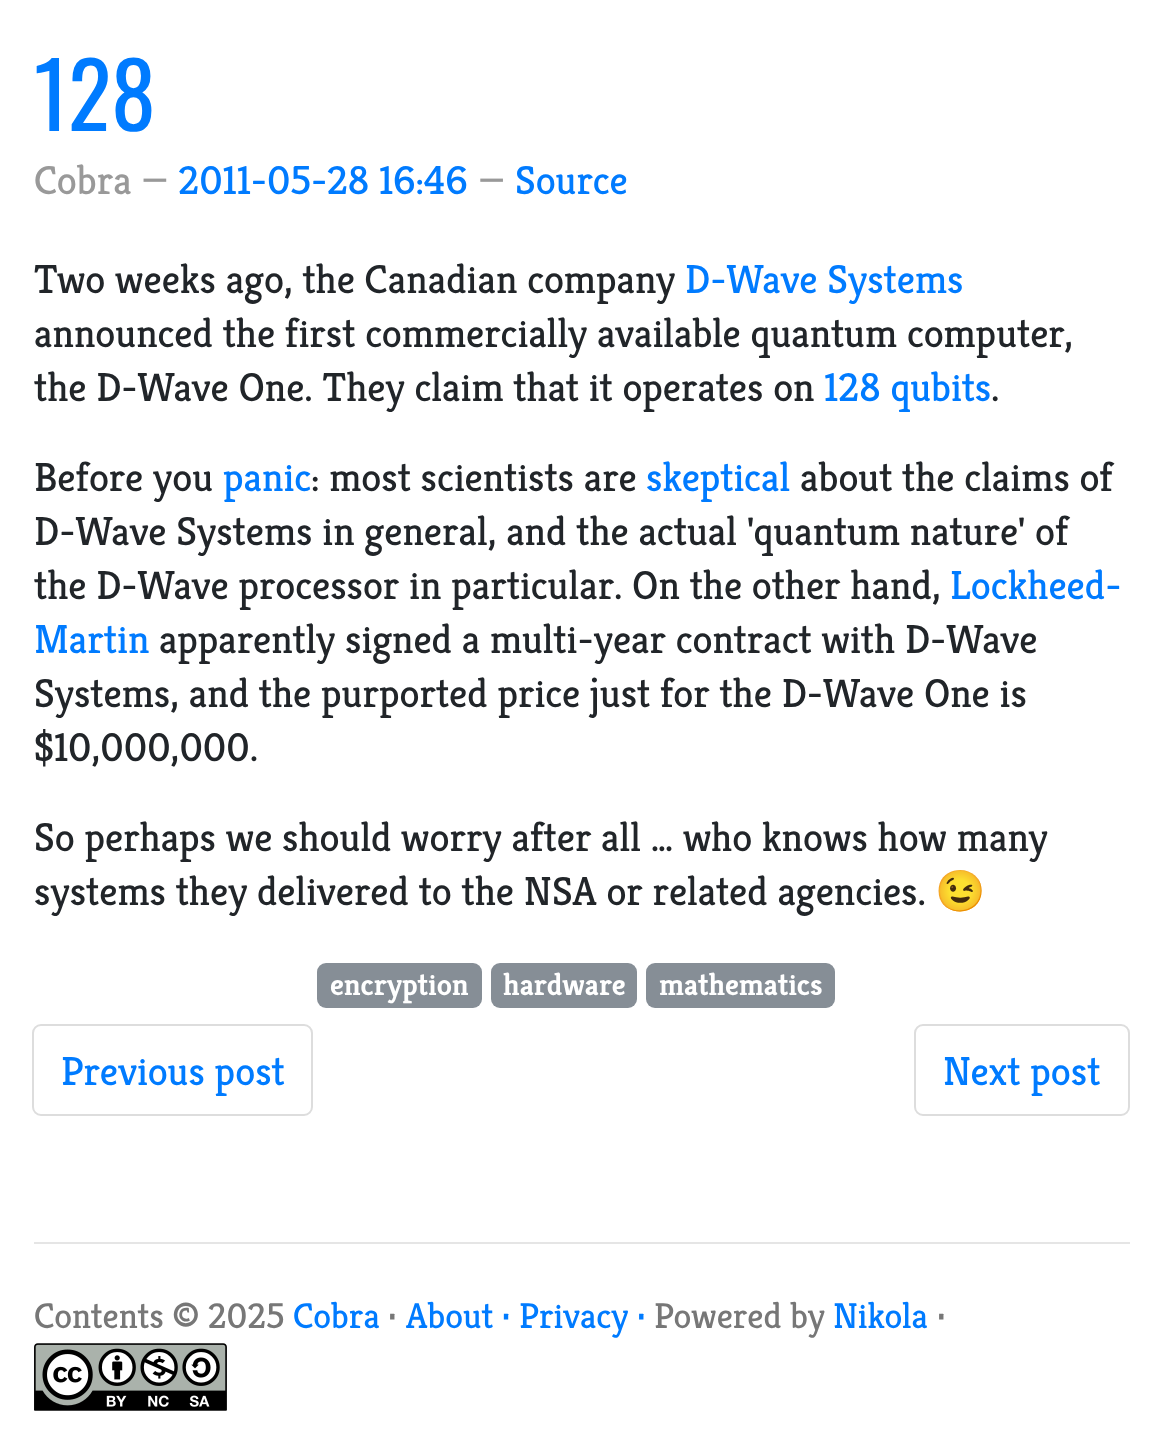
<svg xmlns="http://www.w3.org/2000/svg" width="1163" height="1436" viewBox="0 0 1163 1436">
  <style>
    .t1 { font: 90px Oswald; fill: #007bff; }
    .t2 { font: 40.5px Kreon; fill: #999; }
    .t3 { font: 40.5px Kreon; fill: #007bff; }
    .t4 { font: 40.5px Kreon; fill: #212529; }
    .t5 { font: 40.5px Noto Color Emoji; fill: #212529; }
    .t6 { font: bold 30.5px Kreon; fill: #fff; }
    .t7 { font: 36px Kreon; fill: #777; }
    .t8 { font: 36px Kreon; fill: #007bff; }
  </style>
  <rect width="100%" height="100%" fill="#fff"/>
  <text x="34" y="131" class="t1">128</text>
  <text x="34" y="194" class="t2">Cobra —</text>
  <text x="178" y="194" class="t3">2011-05-28 16:46</text>
  <text x="478" y="194" class="t2">—</text>
  <text x="515" y="194" class="t3">Source</text>
  <text x="34" y="293" class="t4">Two weeks ago, the Canadian company</text>
  <text x="685" y="293" class="t3">D-Wave Systems</text>
  <text x="34" y="347" class="t4">announced the first commercially available quantum computer,</text>
  <text x="34" y="401" class="t4">the D-Wave One. They claim that it operates on</text>
  <text x="824" y="401" class="t3">128 qubits</text>
  <text x="991" y="401" class="t4">.</text>
  <text x="34" y="491" class="t4">Before you</text>
  <text x="223" y="491" class="t3">panic</text>
  <text x="311" y="491" class="t4">: most scientists are</text>
  <text x="646" y="491" class="t3">skeptical</text>
  <text x="800" y="491" class="t4">about the claims of</text>
  <text x="34" y="545" class="t4">D-Wave Systems in general, and the actual 'quantum nature' of</text>
  <text x="34" y="599" class="t4">the D-Wave processor in particular. On the other hand,</text>
  <text x="950" y="599" class="t3">Lockheed-</text>
  <text x="34" y="653" class="t3">Martin</text>
  <text x="159" y="653" class="t4">apparently signed a multi-year contract with D-Wave</text>
  <text x="34" y="707" class="t4">Systems, and the purported price just for the D-Wave One is</text>
  <text x="34" y="761" class="t4">$10,000,000.</text>
  <text x="34" y="851" class="t4">So perhaps we should worry after all … who knows how many</text>
  <text x="34" y="905" class="t4">systems they delivered to the NSA or related agencies.</text>
  <text x="935" y="905" class="t5">😉</text>
  <rect x="317" y="963" width="165" height="45" rx="9" fill="#868e96"/>
  <text x="330" y="995" class="t6">encryption</text>
  <rect x="491" y="963" width="146" height="45" rx="9" fill="#868e96"/>
  <text x="503" y="995" class="t6">hardware</text>
  <rect x="646" y="963" width="189" height="45" rx="9" fill="#868e96"/>
  <text x="659" y="995" class="t6">mathematics</text>
  <rect x="33" y="1025" width="279" height="90" rx="8" fill="none" stroke="#ddd" stroke-width="2"/>
  <text x="61" y="1085" class="t3">Previous post</text>
  <rect x="915" y="1025" width="214" height="90" rx="8" fill="none" stroke="#ddd" stroke-width="2"/>
  <text x="943" y="1085" class="t3">Next post</text>
  <rect x="34" y="1242" width="1096" height="2" fill="#e5e5e5"/>
  <text x="34" y="1328" class="t7">Contents © 2025</text>
  <text x="293" y="1328" class="t8">Cobra</text>
  <text x="388" y="1328" class="t7">·</text>
  <text x="406" y="1328" class="t8">About · Privacy ·</text>
  <text x="654" y="1328" class="t7">Powered by</text>
  <text x="833" y="1328" class="t8">Nikola</text>
  <text x="937" y="1328" class="t7">·</text>
  <image x="34" y="1343" width="193" height="68" href="images/1.png"/>
</svg>
